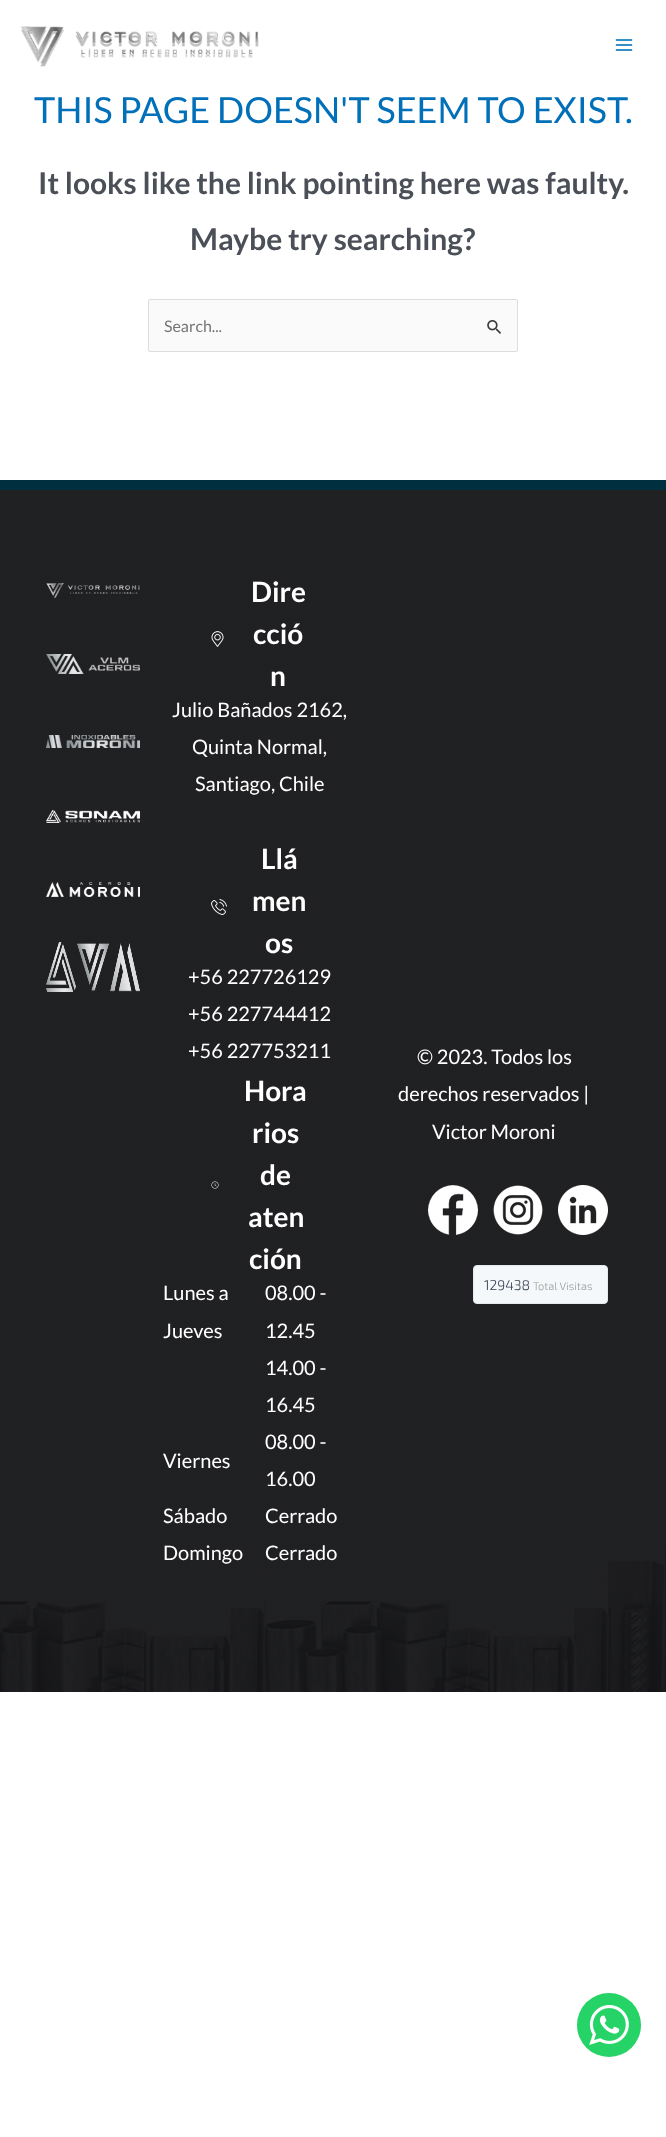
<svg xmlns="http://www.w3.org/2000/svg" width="666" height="2137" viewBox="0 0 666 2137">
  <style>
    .t1 { font: 36px Lato; fill: #0170b9; }
    .t2 { font: bold 30px Lato; fill: #4b4f58; }
    .t3 { font: 16px Lato; fill: #757575; }
    .t4 { font: bold 28px Lato; fill: #fff; }
    .t5 { font: 20px Lato; fill: #fff; }
    .t6 { font: 300 14px 'Exo 2'; fill: #354052; }
    .t7 { font: 300 11px 'Exo 2'; fill: #999; }
  </style>
  <rect width="100%" height="100%" fill="#fff"/>
  <image x="21" y="26" width="238" height="41" href="images/1.png"/>
  <image x="615" y="39" width="18" height="12" href="images/2.png"/>
  <text x="34" y="123" class="t1">THIS PAGE DOESN'T SEEM TO EXIST.</text>
  <text x="38" y="194" class="t2">It looks like the link pointing here was faulty.</text>
  <text x="190" y="250" class="t2">Maybe try searching?</text>
  <rect x="148.5" y="299.5" width="369" height="52" rx="1.5" fill="#fafafa" stroke="#ddd"/>
  <text x="164" y="332" class="t3">Search...</text>
  <image x="487" y="320" width="14" height="14" href="images/3.png"/>
  <rect x="0" y="490" width="666" height="1046" fill="#36383d"/>
  <image x="0" y="490" width="666" height="1202" href="images/4.png"/>
  <rect x="0" y="480" width="666" height="10" fill="#002f3f"/>
  <image x="46" y="582" width="94" height="16" href="images/5.png"/>
  <image x="46" y="654" width="94" height="20" href="images/6.png"/>
  <image x="46" y="735" width="94" height="13" href="images/7.png"/>
  <image x="46" y="810" width="94" height="13" href="images/8.png"/>
  <image x="46" y="882" width="94" height="15" href="images/9.png"/>
  <image x="46" y="942" width="94" height="50" href="images/10.png"/>
  <image x="211" y="631" width="13" height="16" href="images/11.png"/>
  <text x="251" y="602" class="t4">Dire</text>
  <text x="253" y="644" class="t4">cció</text>
  <text x="270" y="686" class="t4">n</text>
  <text x="172" y="717" class="t5">Julio Bañados 2162,</text>
  <text x="192" y="754" class="t5">Quinta Normal,</text>
  <text x="195" y="791" class="t5">Santiago, Chile</text>
  <image x="211" y="899" width="16" height="16" href="images/12.png"/>
  <text x="261" y="869" class="t4">Llá</text>
  <text x="252" y="911" class="t4">men</text>
  <text x="265" y="953" class="t4">os</text>
  <text x="188" y="984" class="t5">+56 227726129</text>
  <text x="188" y="1021" class="t5">+56 227744412</text>
  <text x="188" y="1058" class="t5">+56 227753211</text>
  <image x="211" y="1181" width="8" height="8" href="images/13.png"/>
  <text x="244" y="1101" class="t4">Hora</text>
  <text x="252" y="1143" class="t4">rios</text>
  <text x="260" y="1185" class="t4">de</text>
  <text x="248" y="1227" class="t4">aten</text>
  <text x="249" y="1269" class="t4">ción</text>
  <text x="163" y="1300" class="t5">Lunes a</text>
  <text x="163" y="1338" class="t5">Jueves</text>
  <text x="265" y="1300" class="t5">08.00 -</text>
  <text x="265" y="1338" class="t5">12.45</text>
  <text x="265" y="1375" class="t5">14.00 -</text>
  <text x="265" y="1412" class="t5">16.45</text>
  <text x="163" y="1468" class="t5">Viernes</text>
  <text x="265" y="1449" class="t5">08.00 -</text>
  <text x="265" y="1486" class="t5">16.00</text>
  <text x="163" y="1523" class="t5">Sábado</text>
  <text x="265" y="1523" class="t5">Cerrado</text>
  <text x="163" y="1560" class="t5">Domingo</text>
  <text x="265" y="1560" class="t5">Cerrado</text>
  <text x="417" y="1064" class="t5">© 2023. Todos los</text>
  <text x="398" y="1101" class="t5">derechos reservados |</text>
  <text x="432" y="1139" class="t5">Victor Moroni</text>
  <image x="428" y="1185" width="50" height="50" href="images/14.png"/>
  <image x="493" y="1185" width="50" height="50" href="images/15.png"/>
  <image x="558" y="1185" width="50" height="50" href="images/16.png"/>
  <rect x="473.5" y="1265.5" width="134" height="38" rx="3.5" fill="#f5f8fa" stroke="#e6eaee"/>
  <text x="484" y="1290" class="t6">129438</text>
  <text x="533" y="1290" class="t7">Total Visitas</text>
  <circle cx="609" cy="2025" r="32" fill="#25d366"/>
  <image x="589" y="2005" width="40" height="40" href="images/17.png"/>
</svg>
